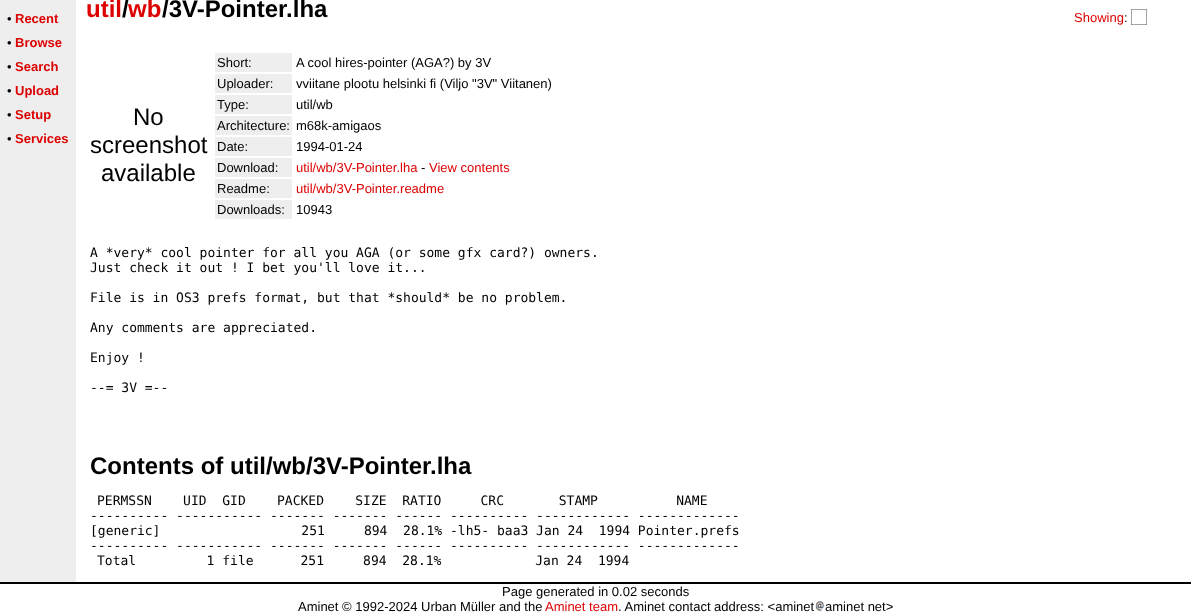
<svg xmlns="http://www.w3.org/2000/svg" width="1191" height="614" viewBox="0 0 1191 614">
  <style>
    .t1 { font: 13px Liberation Sans; fill: #000; }
    .t2 { font: bold 13px Liberation Sans; fill: #d00; }
    .t3 { font: bold 24px Liberation Sans; fill: #d00; }
    .t4 { font: bold 24px Liberation Sans; fill: #000; }
    .t5 { font: 13px Liberation Sans; fill: #d00; }
    .t6 { font: 24px Liberation Sans; fill: #000; }
    .t7 { font: 13px DejaVu Sans Mono; fill: #000; }
  </style>
  <rect width="100%" height="100%" fill="#fff"/>
  <rect x="0" y="0" width="76" height="582" fill="#eee"/>
  <text x="7" y="23" class="t1">•</text>
  <text x="15" y="23" class="t2">Recent</text>
  <text x="7" y="47" class="t1">•</text>
  <text x="15" y="47" class="t2">Browse</text>
  <text x="7" y="71" class="t1">•</text>
  <text x="15" y="71" class="t2">Search</text>
  <text x="7" y="95" class="t1">•</text>
  <text x="15" y="95" class="t2">Upload</text>
  <text x="7" y="119" class="t1">•</text>
  <text x="15" y="119" class="t2">Setup</text>
  <text x="7" y="143" class="t1">•</text>
  <text x="15" y="143" class="t2">Services</text>
  <text x="86" y="17" class="t3">util</text>
  <text x="122" y="17" class="t4">/</text>
  <text x="128" y="17" class="t3">wb</text>
  <text x="162" y="17" class="t4">/3V-Pointer.lha</text>
  <text x="1074" y="22" class="t5">Showing</text>
  <text x="1124" y="22" class="t1">:</text>
  <image x="1131" y="9" width="16" height="16" href="images/1.png"/>
  <text x="133" y="125" class="t6">No</text>
  <text x="90" y="153" class="t6">screenshot</text>
  <text x="101" y="181" class="t6">available</text>
  <rect x="215" y="53" width="77" height="19" fill="#eee"/>
  <text x="217" y="67" class="t1">Short:</text>
  <text x="296" y="67" class="t1">A cool hires-pointer (AGA?) by 3V</text>
  <rect x="215" y="74" width="77" height="19" fill="#eee"/>
  <text x="217" y="88" class="t1">Uploader:</text>
  <text x="296" y="88" class="t1">vviitane plootu helsinki fi (Viljo "3V" Viitanen)</text>
  <rect x="215" y="95" width="77" height="19" fill="#eee"/>
  <text x="217" y="109" class="t1">Type:</text>
  <text x="296" y="109" class="t1">util/wb</text>
  <rect x="215" y="116" width="77" height="19" fill="#eee"/>
  <text x="217" y="130" class="t1">Architecture:</text>
  <text x="296" y="130" class="t1">m68k-amigaos</text>
  <rect x="215" y="137" width="77" height="19" fill="#eee"/>
  <text x="217" y="151" class="t1">Date:</text>
  <text x="296" y="151" class="t1">1994-01-24</text>
  <rect x="215" y="158" width="77" height="19" fill="#eee"/>
  <text x="217" y="172" class="t1">Download:</text>
  <text x="296" y="172" class="t5">util/wb/3V-Pointer.lha</text>
  <text x="421" y="172" class="t1">-</text>
  <text x="429" y="172" class="t5">View contents</text>
  <rect x="215" y="179" width="77" height="19" fill="#eee"/>
  <text x="217" y="193" class="t1">Readme:</text>
  <text x="296" y="193" class="t5">util/wb/3V-Pointer.readme</text>
  <rect x="215" y="200" width="77" height="19" fill="#eee"/>
  <text x="217" y="214" class="t1">Downloads:</text>
  <text x="296" y="214" class="t1">10943</text>
  <text x="90" y="257" class="t7">A *very* cool pointer for all you AGA (or some gfx card?) owners.</text>
  <text x="90" y="272" class="t7">Just check it out ! I bet you'll love it...</text>
  <text x="90" y="302" class="t7">File is in OS3 prefs format, but that *should* be no problem.</text>
  <text x="90" y="332" class="t7">Any comments are appreciated.</text>
  <text x="90" y="362" class="t7">Enjoy !</text>
  <text x="90" y="392" class="t7">--= 3V =--</text>
  <text x="90" y="474" class="t4">Contents of util/wb/3V-Pointer.lha</text>
  <text x="97" y="505" class="t7" xml:space="preserve">PERMSSN    UID  GID    PACKED    SIZE  RATIO     CRC       STAMP          NAME</text>
  <text x="90" y="520" class="t7">---------- ----------- ------- ------- ------ ---------- ------------ -------------</text>
  <text x="90" y="535" class="t7" xml:space="preserve">[generic]                  251     894  28.1% -lh5- baa3 Jan 24  1994 Pointer.prefs</text>
  <text x="90" y="550" class="t7">---------- ----------- ------- ------- ------ ---------- ------------ -------------</text>
  <text x="97" y="565" class="t7" xml:space="preserve">Total         1 file      251     894  28.1%            Jan 24  1994</text>
  <rect x="0" y="582" width="1191" height="2" fill="#000"/>
  <text x="502" y="596" class="t1">Page generated in 0.02 seconds</text>
  <text x="298" y="611" class="t1">Aminet © 1992-2024 Urban</text>
  <text x="460" y="611" class="t1">Müller and the</text>
  <text x="545" y="611" class="t5">Aminet team</text>
  <text x="618" y="611" class="t1">. Aminet contact address: &lt;aminet</text>
  <image x="815" y="601" width="10" height="10" href="images/2.png"/>
  <text x="825" y="611" class="t1">aminet net&gt;</text>
</svg>
